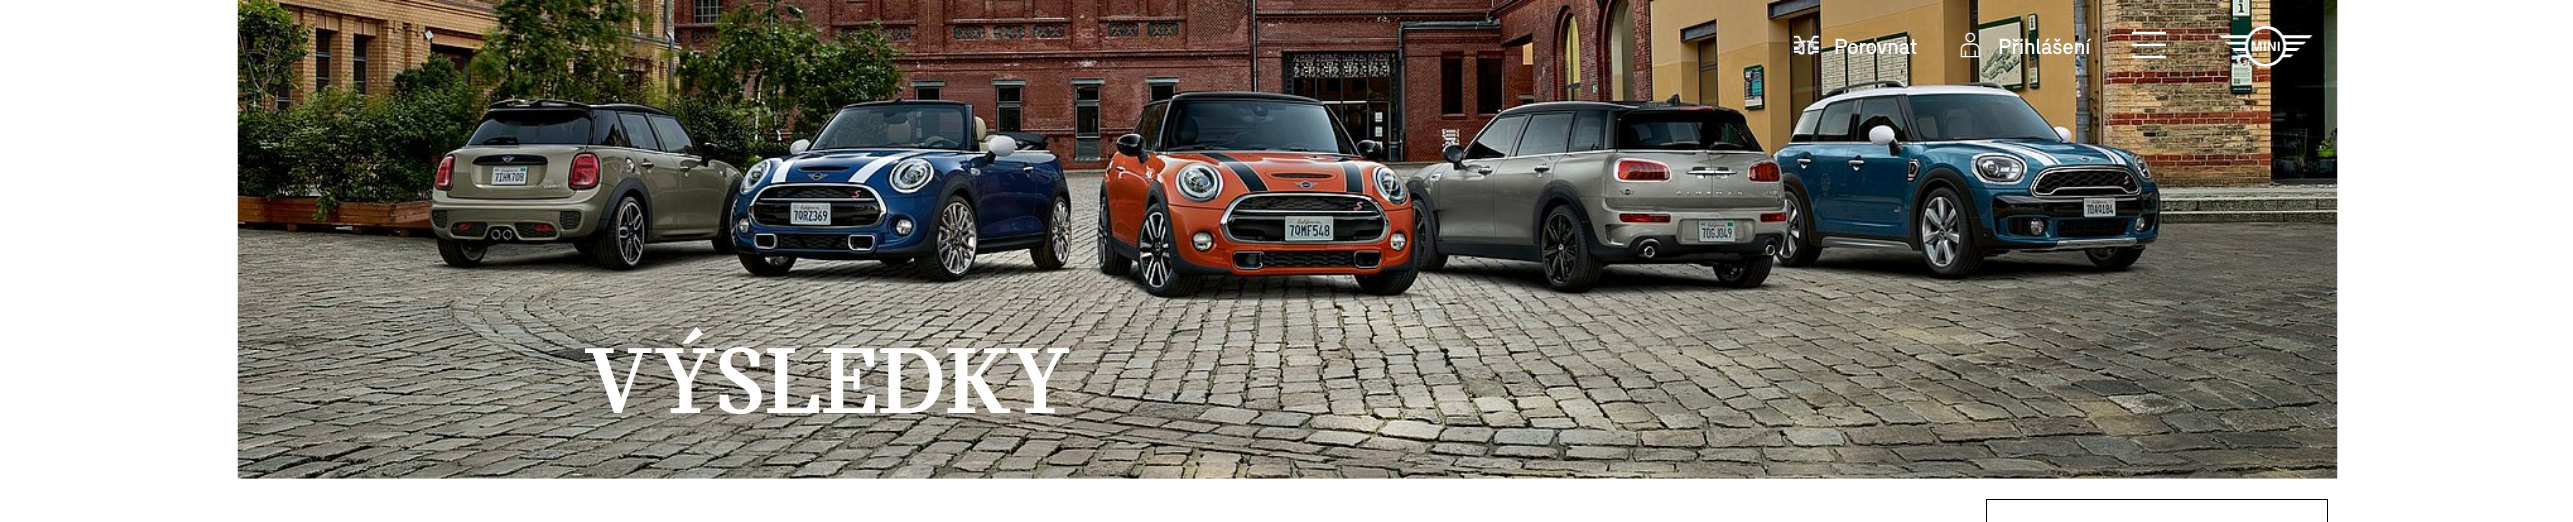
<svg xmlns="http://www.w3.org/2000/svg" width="2573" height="522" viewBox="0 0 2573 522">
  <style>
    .t1 { font: 22.5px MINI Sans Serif; fill: #fff; }
    .t2 { font: bold 100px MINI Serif; fill: #fff; }
  </style>
  <rect width="100%" height="100%" fill="#fff"/>
  <image x="237" y="0" width="2101" height="479" href="images/4.png"/>
  <image x="1794" y="35" width="25" height="20" href="images/1.png"/>
  <text x="1834" y="54" class="t1">Porovnat</text>
  <image x="1959" y="32" width="22" height="26" href="images/2.png"/>
  <text x="1998" y="54" class="t1">Přihlášení</text>
  <path d="M2132 33H2166M2132 45H2166M2132 57H2166" fill="none" stroke="#fff" stroke-width="2.5"/>
  <image x="2218" y="25" width="95" height="42" href="images/3.png"/>
  <text x="584" y="413" class="t2">VÝSLEDKY</text>
  <rect x="1986.5" y="499.5" width="341" height="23" fill="none" stroke="#000"/>
</svg>
